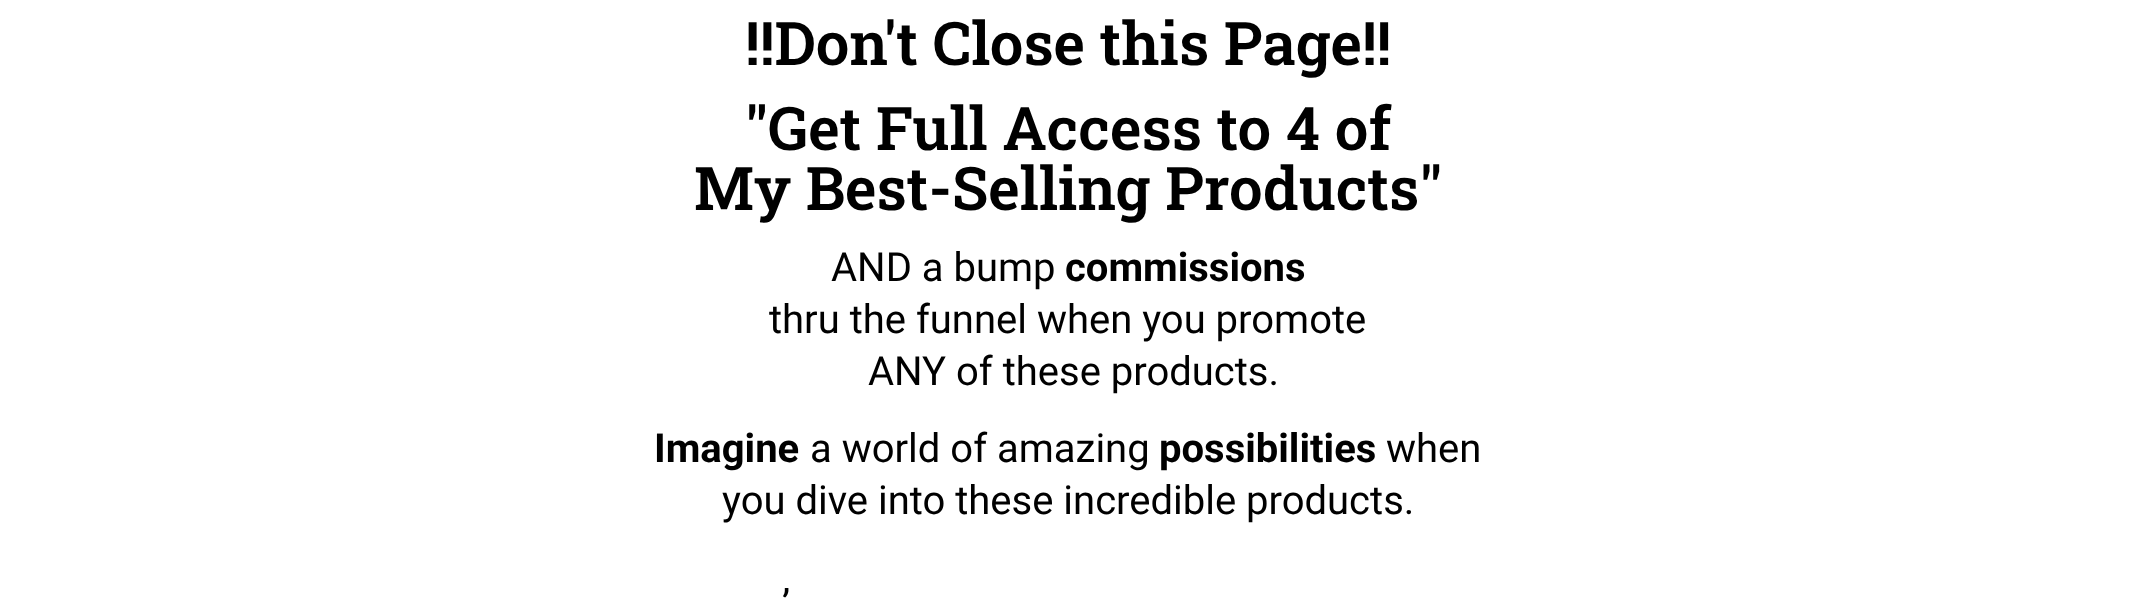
<svg xmlns="http://www.w3.org/2000/svg" width="2136" height="602" viewBox="0 0 2136 602">
  <style>
    .t1 { font: 600 60px Roboto Slab; fill: #000; }
    .t2 { font: 40px Roboto; fill: #000; }
    .t3 { font: bold 40px Roboto; fill: #000; }
  </style>
  <rect width="100%" height="100%" fill="#fff"/>
  <text x="745" y="65" class="t1">!!Don't Close this Page!!</text>
  <text x="745" y="150" class="t1">"Get Full Access to 4 of</text>
  <text x="694" y="210" class="t1">My Best-Selling Products"</text>
  <text x="831" y="281" class="t2">AND a bump</text>
  <text x="1065" y="281" class="t3">commissions</text>
  <text x="769" y="333" class="t2">thru the funnel when you promote</text>
  <text x="868" y="385" class="t2">ANY of these products.</text>
  <text x="654" y="462" class="t3">Imagine</text>
  <text x="810" y="462" class="t2">a world of amazing</text>
  <text x="1159" y="462" class="t3">possibilities</text>
  <text x="1386" y="462" class="t2">when</text>
  <text x="722" y="514" class="t2">you dive into these incredible products.</text>
  <text x="782" y="618" class="t2">’</text>
</svg>
